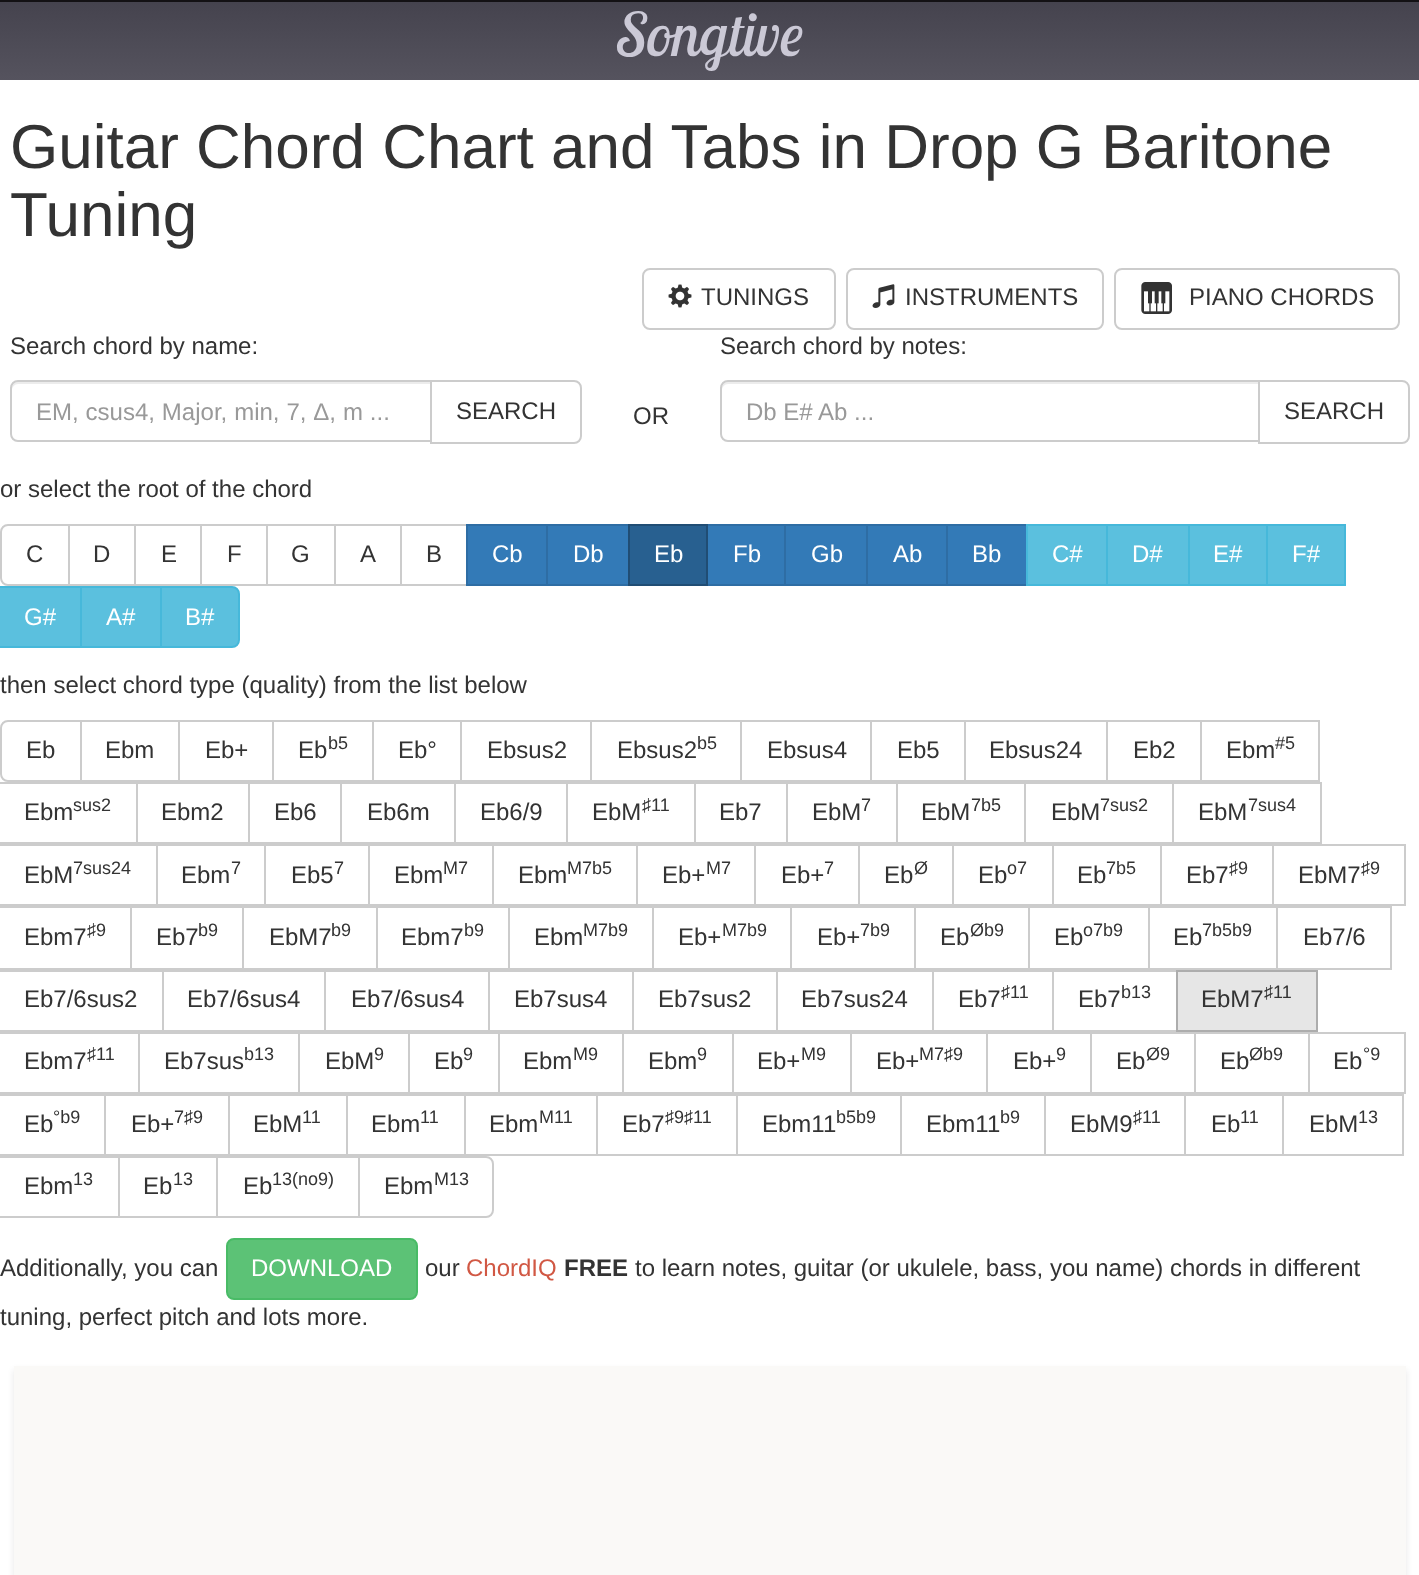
<svg xmlns="http://www.w3.org/2000/svg" width="1419" height="1575" viewBox="0 0 1419 1575">
  <style>
    .t1 { font: italic 60px Lobster Two; fill: #cbc9d6; }
    .t2 { font: 62px Liberation Sans; fill: #333; }
    .t3 { font: 24px Liberation Sans; fill: #333; }
    .t4 { font: 24px Liberation Sans; fill: #999; }
    .t5 { font: 24px Liberation Sans; fill: #fff; }
    .t6 { font: 18px Liberation Sans; fill: #333; }
    .t7 { font: 24px Liberation Sans; fill: #d15844; }
    .t8 { font: bold 24px Liberation Sans; fill: #333; }
  </style>
  <defs>
    <linearGradient id="g1" gradientUnits="userSpaceOnUse" x1="710" y1="2" x2="710" y2="80"><stop offset="0" stop-color="#45434e"/><stop offset="1" stop-color="#55535e"/></linearGradient>
  </defs>
  <rect width="100%" height="100%" fill="#fff"/>
  <rect x="0" y="2" width="1419" height="78" fill="url(#g1)"/>
  <rect x="0" y="0" width="1419" height="2" fill="#131114"/>
  <text x="617" y="56" class="t1">Songtive</text>
  <text x="10" y="168" class="t2">Guitar Chord Chart and Tabs in Drop G Baritone</text>
  <text x="10" y="236" class="t2">Tuning</text>
  <rect x="643" y="269" width="192" height="60" rx="7" fill="none" stroke="#ccc" stroke-width="2"/>
  <image x="668" y="284" width="24" height="24" href="images/1.png"/>
  <text x="701" y="305" class="t3">TUNINGS</text>
  <rect x="847" y="269" width="256" height="60" rx="7" fill="none" stroke="#ccc" stroke-width="2"/>
  <image x="872" y="284" width="23" height="24" href="images/2.png"/>
  <text x="905" y="305" class="t3">INSTRUMENTS</text>
  <rect x="1115" y="269" width="284" height="60" rx="7" fill="none" stroke="#ccc" stroke-width="2"/>
  <image x="1141" y="282" width="31" height="32" href="images/3.png"/>
  <text x="1189" y="305" class="t3">PIANO CHORDS</text>
  <text x="10" y="354" class="t3">Search chord by name:</text>
  <path d="M431 381H574C578 381 581 384 581 388V436C581 440 578 443 574 443H431Z" fill="none" stroke="#ccc" stroke-width="2"/>
  <path d="M18 380H432V442H18C13.5 442 10 438.5 10 434V388C10 383.5 13.5 380 18 380Z" fill="#fff"/>
  <path d="M18 384H430V382H18C15 382 12 385 12 388V390C12 387 15 384 18 384Z" fill="#ececec"/>
  <path d="M18 381H431V441H18C14 441 11 438 11 434V388C11 384 14 381 18 381Z" fill="none" stroke="#ccc" stroke-width="2"/>
  <text x="36" y="420" word-spacing="0.25" class="t4">EM, csus4, Major, min, 7, Δ, m ...</text>
  <text x="456" y="419" class="t3">SEARCH</text>
  <text x="633" y="424" class="t3">OR</text>
  <text x="720" y="354" class="t3">Search chord by notes:</text>
  <path d="M1259 381H1402C1406 381 1409 384 1409 388V436C1409 440 1406 443 1402 443H1259Z" fill="none" stroke="#ccc" stroke-width="2"/>
  <path d="M728 380H1260V442H728C723.5 442 720 438.5 720 434V388C720 383.5 723.5 380 728 380Z" fill="#fff"/>
  <path d="M728 384H1258V382H728C725 382 722 385 722 388V390C722 387 725 384 728 384Z" fill="#ececec"/>
  <path d="M728 381H1259V441H728C724 441 721 438 721 434V388C721 384 724 381 728 381Z" fill="none" stroke="#ccc" stroke-width="2"/>
  <text x="746" y="420" class="t4">Db E# Ab ...</text>
  <text x="1284" y="419" class="t3">SEARCH</text>
  <text x="0" y="497" class="t3">or select the root of the chord</text>
  <path d="M8 525H69V585H8C4 585 1 582 1 578V532C1 528 4 525 8 525Z" fill="none" stroke="#ccc" stroke-width="2"/>
  <text x="26" y="562" class="t3">C</text>
  <rect x="69" y="525" width="66" height="60" fill="none" stroke="#ccc" stroke-width="2"/>
  <text x="93" y="562" class="t3">D</text>
  <rect x="135" y="525" width="66" height="60" fill="none" stroke="#ccc" stroke-width="2"/>
  <text x="161" y="562" class="t3">E</text>
  <rect x="201" y="525" width="66" height="60" fill="none" stroke="#ccc" stroke-width="2"/>
  <text x="227" y="562" class="t3">F</text>
  <rect x="267" y="525" width="68" height="60" fill="none" stroke="#ccc" stroke-width="2"/>
  <text x="291" y="562" class="t3">G</text>
  <rect x="335" y="525" width="66" height="60" fill="none" stroke="#ccc" stroke-width="2"/>
  <text x="360" y="562" class="t3">A</text>
  <rect x="401" y="525" width="66" height="60" fill="none" stroke="#ccc" stroke-width="2"/>
  <text x="426" y="562" class="t3">B</text>
  <rect x="467" y="525" width="80" height="60" fill="#337ab7" stroke="#2e6da4" stroke-width="2"/>
  <text x="492" y="562" class="t5">Cb</text>
  <rect x="547" y="525" width="82" height="60" fill="#337ab7" stroke="#2e6da4" stroke-width="2"/>
  <text x="573" y="562" class="t5">Db</text>
  <rect x="707" y="525" width="78" height="60" fill="#337ab7" stroke="#2e6da4" stroke-width="2"/>
  <rect x="629" y="525" width="78" height="60" fill="#286090" stroke="#204d74" stroke-width="2"/>
  <text x="654" y="562" class="t5">Eb</text>
  <text x="733" y="562" class="t5">Fb</text>
  <rect x="785" y="525" width="82" height="60" fill="#337ab7" stroke="#2e6da4" stroke-width="2"/>
  <text x="811" y="562" class="t5">Gb</text>
  <rect x="867" y="525" width="80" height="60" fill="#337ab7" stroke="#2e6da4" stroke-width="2"/>
  <text x="893" y="562" class="t5">Ab</text>
  <rect x="947" y="525" width="80" height="60" fill="#337ab7" stroke="#2e6da4" stroke-width="2"/>
  <text x="972" y="562" class="t5">Bb</text>
  <rect x="1027" y="525" width="80" height="60" fill="#5bc0de" stroke="#46b8da" stroke-width="2"/>
  <text x="1052" y="562" class="t5">C#</text>
  <rect x="1107" y="525" width="82" height="60" fill="#5bc0de" stroke="#46b8da" stroke-width="2"/>
  <text x="1132" y="562" class="t5">D#</text>
  <rect x="1189" y="525" width="78" height="60" fill="#5bc0de" stroke="#46b8da" stroke-width="2"/>
  <text x="1213" y="562" class="t5">E#</text>
  <rect x="1267" y="525" width="78" height="60" fill="#5bc0de" stroke="#46b8da" stroke-width="2"/>
  <text x="1292" y="562" class="t5">F#</text>
  <rect x="-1" y="587" width="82" height="60" fill="#5bc0de" stroke="#46b8da" stroke-width="2"/>
  <text x="24" y="625" class="t5">G#</text>
  <rect x="81" y="587" width="80" height="60" fill="#5bc0de" stroke="#46b8da" stroke-width="2"/>
  <text x="106" y="625" class="t5">A#</text>
  <path d="M161 587H232C236 587 239 590 239 594V640C239 644 236 647 232 647H161Z" fill="#5bc0de" stroke="#46b8da" stroke-width="2"/>
  <text x="185" y="625" class="t5">B#</text>
  <text x="0" y="693" class="t3">then select chord type (quality) from the list below</text>
  <path d="M8 721H81V781H8C4 781 1 778 1 774V728C1 724 4 721 8 721Z" fill="none" stroke="#ccc" stroke-width="2"/>
  <text x="26" y="758" class="t3">Eb</text>
  <rect x="81" y="721" width="98" height="60" fill="none" stroke="#ccc" stroke-width="2"/>
  <text x="105" y="758" class="t3">Ebm</text>
  <rect x="179" y="721" width="94" height="60" fill="none" stroke="#ccc" stroke-width="2"/>
  <text x="205" y="758" class="t3">Eb+</text>
  <rect x="273" y="721" width="100" height="60" fill="none" stroke="#ccc" stroke-width="2"/>
  <text x="298" y="758" class="t3">Eb</text>
  <text x="328" y="749" class="t6">b5</text>
  <rect x="373" y="721" width="88" height="60" fill="none" stroke="#ccc" stroke-width="2"/>
  <text x="398" y="758" class="t3">Eb°</text>
  <rect x="461" y="721" width="130" height="60" fill="none" stroke="#ccc" stroke-width="2"/>
  <text x="487" y="758" class="t3">Ebsus2</text>
  <rect x="591" y="721" width="150" height="60" fill="none" stroke="#ccc" stroke-width="2"/>
  <text x="617" y="758" class="t3">Ebsus2</text>
  <text x="697" y="749" class="t6">b5</text>
  <rect x="741" y="721" width="130" height="60" fill="none" stroke="#ccc" stroke-width="2"/>
  <text x="767" y="758" class="t3">Ebsus4</text>
  <rect x="871" y="721" width="94" height="60" fill="none" stroke="#ccc" stroke-width="2"/>
  <text x="897" y="758" class="t3">Eb5</text>
  <rect x="965" y="721" width="142" height="60" fill="none" stroke="#ccc" stroke-width="2"/>
  <text x="989" y="758" class="t3">Ebsus24</text>
  <rect x="1107" y="721" width="94" height="60" fill="none" stroke="#ccc" stroke-width="2"/>
  <text x="1133" y="758" class="t3">Eb2</text>
  <rect x="1201" y="721" width="118" height="60" fill="none" stroke="#ccc" stroke-width="2"/>
  <text x="1226" y="758" class="t3">Ebm</text>
  <text x="1275" y="749" class="t6">#5</text>
  <rect x="-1" y="783" width="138" height="60" fill="none" stroke="#ccc" stroke-width="2"/>
  <text x="24" y="820" class="t3">Ebm</text>
  <text x="73" y="811" class="t6">sus2</text>
  <rect x="137" y="783" width="112" height="60" fill="none" stroke="#ccc" stroke-width="2"/>
  <text x="161" y="820" class="t3">Ebm2</text>
  <rect x="249" y="783" width="92" height="60" fill="none" stroke="#ccc" stroke-width="2"/>
  <text x="274" y="820" class="t3">Eb6</text>
  <rect x="341" y="783" width="114" height="60" fill="none" stroke="#ccc" stroke-width="2"/>
  <text x="367" y="820" class="t3">Eb6m</text>
  <rect x="455" y="783" width="112" height="60" fill="none" stroke="#ccc" stroke-width="2"/>
  <text x="480" y="820" class="t3">Eb6/9</text>
  <rect x="567" y="783" width="128" height="60" fill="none" stroke="#ccc" stroke-width="2"/>
  <text x="592" y="820" class="t3">EbM</text>
  <text x="642" y="811" class="t6">♯11</text>
  <rect x="695" y="783" width="92" height="60" fill="none" stroke="#ccc" stroke-width="2"/>
  <text x="719" y="820" class="t3">Eb7</text>
  <rect x="787" y="783" width="110" height="60" fill="none" stroke="#ccc" stroke-width="2"/>
  <text x="812" y="820" class="t3">EbM</text>
  <text x="861" y="811" class="t6">7</text>
  <rect x="897" y="783" width="128" height="60" fill="none" stroke="#ccc" stroke-width="2"/>
  <text x="921" y="820" class="t3">EbM</text>
  <text x="971" y="811" class="t6">7b5</text>
  <rect x="1025" y="783" width="148" height="60" fill="none" stroke="#ccc" stroke-width="2"/>
  <text x="1051" y="820" class="t3">EbM</text>
  <text x="1100" y="811" class="t6">7sus2</text>
  <rect x="1173" y="783" width="148" height="60" fill="none" stroke="#ccc" stroke-width="2"/>
  <text x="1198" y="820" class="t3">EbM</text>
  <text x="1248" y="811" class="t6">7sus4</text>
  <rect x="-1" y="845" width="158" height="60" fill="none" stroke="#ccc" stroke-width="2"/>
  <text x="24" y="883" class="t3">EbM</text>
  <text x="73" y="874" class="t6">7sus24</text>
  <rect x="157" y="845" width="108" height="60" fill="none" stroke="#ccc" stroke-width="2"/>
  <text x="181" y="883" class="t3">Ebm</text>
  <text x="231" y="874" class="t6">7</text>
  <rect x="265" y="845" width="104" height="60" fill="none" stroke="#ccc" stroke-width="2"/>
  <text x="291" y="883" class="t3">Eb5</text>
  <text x="334" y="874" class="t6">7</text>
  <rect x="369" y="845" width="124" height="60" fill="none" stroke="#ccc" stroke-width="2"/>
  <text x="394" y="883" class="t3">Ebm</text>
  <text x="443" y="874" class="t6">M7</text>
  <rect x="493" y="845" width="144" height="60" fill="none" stroke="#ccc" stroke-width="2"/>
  <text x="518" y="883" class="t3">Ebm</text>
  <text x="567" y="874" class="t6">M7b5</text>
  <rect x="637" y="845" width="118" height="60" fill="none" stroke="#ccc" stroke-width="2"/>
  <text x="662" y="883" class="t3">Eb+</text>
  <text x="706" y="874" class="t6">M7</text>
  <rect x="755" y="845" width="104" height="60" fill="none" stroke="#ccc" stroke-width="2"/>
  <text x="781" y="883" class="t3">Eb+</text>
  <text x="824" y="874" class="t6">7</text>
  <rect x="859" y="845" width="94" height="60" fill="none" stroke="#ccc" stroke-width="2"/>
  <text x="884" y="883" class="t3">Eb</text>
  <text x="914" y="874" class="t6">Ø</text>
  <rect x="953" y="845" width="100" height="60" fill="none" stroke="#ccc" stroke-width="2"/>
  <text x="978" y="883" class="t3">Eb</text>
  <text x="1007" y="874" class="t6">o7</text>
  <rect x="1053" y="845" width="108" height="60" fill="none" stroke="#ccc" stroke-width="2"/>
  <text x="1077" y="883" class="t3">Eb</text>
  <text x="1106" y="874" class="t6">7b5</text>
  <rect x="1161" y="845" width="112" height="60" fill="none" stroke="#ccc" stroke-width="2"/>
  <text x="1186" y="883" class="t3">Eb7</text>
  <text x="1229" y="874" class="t6">♯9</text>
  <rect x="1273" y="845" width="132" height="60" fill="none" stroke="#ccc" stroke-width="2"/>
  <text x="1298" y="883" class="t3">EbM7</text>
  <text x="1361" y="874" class="t6">♯9</text>
  <rect x="-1" y="907" width="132" height="62" fill="none" stroke="#ccc" stroke-width="2"/>
  <text x="24" y="945" class="t3">Ebm7</text>
  <text x="87" y="936" class="t6">♯9</text>
  <rect x="131" y="907" width="112" height="62" fill="none" stroke="#ccc" stroke-width="2"/>
  <text x="156" y="945" class="t3">Eb7</text>
  <text x="198" y="936" class="t6">b9</text>
  <rect x="243" y="907" width="134" height="62" fill="none" stroke="#ccc" stroke-width="2"/>
  <text x="269" y="945" class="t3">EbM7</text>
  <text x="331" y="936" class="t6">b9</text>
  <rect x="377" y="907" width="132" height="62" fill="none" stroke="#ccc" stroke-width="2"/>
  <text x="401" y="945" class="t3">Ebm7</text>
  <text x="464" y="936" class="t6">b9</text>
  <rect x="509" y="907" width="144" height="62" fill="none" stroke="#ccc" stroke-width="2"/>
  <text x="534" y="945" class="t3">Ebm</text>
  <text x="583" y="936" class="t6">M7b9</text>
  <rect x="653" y="907" width="138" height="62" fill="none" stroke="#ccc" stroke-width="2"/>
  <text x="678" y="945" class="t3">Eb+</text>
  <text x="722" y="936" class="t6">M7b9</text>
  <rect x="791" y="907" width="124" height="62" fill="none" stroke="#ccc" stroke-width="2"/>
  <text x="817" y="945" class="t3">Eb+</text>
  <text x="860" y="936" class="t6">7b9</text>
  <rect x="915" y="907" width="114" height="62" fill="none" stroke="#ccc" stroke-width="2"/>
  <text x="940" y="945" class="t3">Eb</text>
  <text x="970" y="936" class="t6">Øb9</text>
  <rect x="1029" y="907" width="120" height="62" fill="none" stroke="#ccc" stroke-width="2"/>
  <text x="1054" y="945" class="t3">Eb</text>
  <text x="1083" y="936" class="t6">o7b9</text>
  <rect x="1149" y="907" width="128" height="62" fill="none" stroke="#ccc" stroke-width="2"/>
  <text x="1173" y="945" class="t3">Eb</text>
  <text x="1202" y="936" class="t6">7b5b9</text>
  <rect x="1277" y="907" width="114" height="62" fill="none" stroke="#ccc" stroke-width="2"/>
  <text x="1303" y="945" class="t3">Eb7/6</text>
  <rect x="-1" y="971" width="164" height="60" fill="none" stroke="#ccc" stroke-width="2"/>
  <text x="24" y="1007" class="t3">Eb7/6sus2</text>
  <rect x="163" y="971" width="162" height="60" fill="none" stroke="#ccc" stroke-width="2"/>
  <text x="187" y="1007" class="t3">Eb7/6sus4</text>
  <rect x="325" y="971" width="164" height="60" fill="none" stroke="#ccc" stroke-width="2"/>
  <text x="351" y="1007" class="t3">Eb7/6sus4</text>
  <rect x="489" y="971" width="144" height="60" fill="none" stroke="#ccc" stroke-width="2"/>
  <text x="514" y="1007" class="t3">Eb7sus4</text>
  <rect x="633" y="971" width="144" height="60" fill="none" stroke="#ccc" stroke-width="2"/>
  <text x="658" y="1007" class="t3">Eb7sus2</text>
  <rect x="777" y="971" width="156" height="60" fill="none" stroke="#ccc" stroke-width="2"/>
  <text x="801" y="1007" class="t3">Eb7sus24</text>
  <rect x="933" y="971" width="120" height="60" fill="none" stroke="#ccc" stroke-width="2"/>
  <text x="958" y="1007" class="t3">Eb7</text>
  <text x="1001" y="998" class="t6">♯11</text>
  <rect x="1053" y="971" width="124" height="60" fill="none" stroke="#ccc" stroke-width="2"/>
  <text x="1078" y="1007" class="t3">Eb7</text>
  <text x="1121" y="998" class="t6">b13</text>
  <rect x="1177" y="971" width="140" height="60" fill="#e6e6e6" stroke="#adadad" stroke-width="2"/>
  <text x="1201" y="1007" class="t3">EbM7</text>
  <text x="1264" y="998" class="t6">♯11</text>
  <rect x="-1" y="1033" width="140" height="60" fill="none" stroke="#ccc" stroke-width="2"/>
  <text x="24" y="1069" class="t3">Ebm7</text>
  <text x="87" y="1060" class="t6">♯11</text>
  <rect x="139" y="1033" width="160" height="60" fill="none" stroke="#ccc" stroke-width="2"/>
  <text x="164" y="1069" class="t3">Eb7sus</text>
  <text x="244" y="1060" class="t6">b13</text>
  <rect x="299" y="1033" width="110" height="60" fill="none" stroke="#ccc" stroke-width="2"/>
  <text x="325" y="1069" class="t3">EbM</text>
  <text x="374" y="1060" class="t6">9</text>
  <rect x="409" y="1033" width="90" height="60" fill="none" stroke="#ccc" stroke-width="2"/>
  <text x="434" y="1069" class="t3">Eb</text>
  <text x="463" y="1060" class="t6">9</text>
  <rect x="499" y="1033" width="124" height="60" fill="none" stroke="#ccc" stroke-width="2"/>
  <text x="523" y="1069" class="t3">Ebm</text>
  <text x="573" y="1060" class="t6">M9</text>
  <rect x="623" y="1033" width="110" height="60" fill="none" stroke="#ccc" stroke-width="2"/>
  <text x="648" y="1069" class="t3">Ebm</text>
  <text x="697" y="1060" class="t6">9</text>
  <rect x="733" y="1033" width="118" height="60" fill="none" stroke="#ccc" stroke-width="2"/>
  <text x="757" y="1069" class="t3">Eb+</text>
  <text x="801" y="1060" class="t6">M9</text>
  <rect x="851" y="1033" width="136" height="60" fill="none" stroke="#ccc" stroke-width="2"/>
  <text x="876" y="1069" class="t3">Eb+</text>
  <text x="919" y="1060" class="t6">M7♯9</text>
  <rect x="987" y="1033" width="104" height="60" fill="none" stroke="#ccc" stroke-width="2"/>
  <text x="1013" y="1069" class="t3">Eb+</text>
  <text x="1056" y="1060" class="t6">9</text>
  <rect x="1091" y="1033" width="104" height="60" fill="none" stroke="#ccc" stroke-width="2"/>
  <text x="1116" y="1069" class="t3">Eb</text>
  <text x="1146" y="1060" class="t6">Ø9</text>
  <rect x="1195" y="1033" width="114" height="60" fill="none" stroke="#ccc" stroke-width="2"/>
  <text x="1220" y="1069" class="t3">Eb</text>
  <text x="1249" y="1060" class="t6">Øb9</text>
  <rect x="1309" y="1033" width="96" height="60" fill="none" stroke="#ccc" stroke-width="2"/>
  <text x="1333" y="1069" class="t3">Eb</text>
  <text x="1363" y="1060" class="t6">°9</text>
  <rect x="-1" y="1095" width="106" height="60" fill="none" stroke="#ccc" stroke-width="2"/>
  <text x="24" y="1132" class="t3">Eb</text>
  <text x="53" y="1123" class="t6">°b9</text>
  <rect x="105" y="1095" width="124" height="60" fill="none" stroke="#ccc" stroke-width="2"/>
  <text x="131" y="1132" class="t3">Eb+</text>
  <text x="174" y="1123" class="t6">7♯9</text>
  <rect x="229" y="1095" width="118" height="60" fill="none" stroke="#ccc" stroke-width="2"/>
  <text x="253" y="1132" class="t3">EbM</text>
  <text x="302" y="1123" class="t6">11</text>
  <rect x="347" y="1095" width="118" height="60" fill="none" stroke="#ccc" stroke-width="2"/>
  <text x="371" y="1132" class="t3">Ebm</text>
  <text x="420" y="1123" class="t6">11</text>
  <rect x="465" y="1095" width="132" height="60" fill="none" stroke="#ccc" stroke-width="2"/>
  <text x="489" y="1132" class="t3">Ebm</text>
  <text x="539" y="1123" class="t6">M11</text>
  <rect x="597" y="1095" width="140" height="60" fill="none" stroke="#ccc" stroke-width="2"/>
  <text x="622" y="1132" class="t3">Eb7</text>
  <text x="665" y="1123" class="t6">♯9♯11</text>
  <rect x="737" y="1095" width="164" height="60" fill="none" stroke="#ccc" stroke-width="2"/>
  <text x="762" y="1132" class="t3">Ebm11</text>
  <text x="836" y="1123" class="t6">b5b9</text>
  <rect x="901" y="1095" width="144" height="60" fill="none" stroke="#ccc" stroke-width="2"/>
  <text x="926" y="1132" class="t3">Ebm11</text>
  <text x="1000" y="1123" class="t6">b9</text>
  <rect x="1045" y="1095" width="140" height="60" fill="none" stroke="#ccc" stroke-width="2"/>
  <text x="1070" y="1132" class="t3">EbM9</text>
  <text x="1133" y="1123" class="t6">♯11</text>
  <rect x="1185" y="1095" width="98" height="60" fill="none" stroke="#ccc" stroke-width="2"/>
  <text x="1211" y="1132" class="t3">Eb</text>
  <text x="1240" y="1123" class="t6">11</text>
  <rect x="1283" y="1095" width="120" height="60" fill="none" stroke="#ccc" stroke-width="2"/>
  <text x="1309" y="1132" class="t3">EbM</text>
  <text x="1358" y="1123" class="t6">13</text>
  <rect x="-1" y="1157" width="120" height="60" fill="none" stroke="#ccc" stroke-width="2"/>
  <text x="24" y="1194" class="t3">Ebm</text>
  <text x="73" y="1185" class="t6">13</text>
  <rect x="119" y="1157" width="98" height="60" fill="none" stroke="#ccc" stroke-width="2"/>
  <text x="143" y="1194" class="t3">Eb</text>
  <text x="173" y="1185" class="t6">13</text>
  <rect x="217" y="1157" width="142" height="60" fill="none" stroke="#ccc" stroke-width="2"/>
  <text x="243" y="1194" class="t3">Eb</text>
  <text x="272" y="1185" class="t6">13(no9)</text>
  <path d="M359 1157H486C490 1157 493 1160 493 1164V1210C493 1214 490 1217 486 1217H359Z" fill="#fff" stroke="#ccc" stroke-width="2"/>
  <text x="384" y="1194" class="t3">Ebm</text>
  <text x="434" y="1185" class="t6">M13</text>
  <text x="0" y="1276" class="t3">Additionally, you can</text>
  <rect x="227" y="1239" width="190" height="60" rx="7" fill="#5cc276" stroke="#49bb66" stroke-width="2"/>
  <text x="251" y="1276" class="t5">DOWNLOAD</text>
  <text x="425" y="1276" class="t3">our</text>
  <text x="466" y="1276" class="t7">ChordIQ</text>
  <text x="564" y="1276" class="t8">FREE</text>
  <text x="635" y="1276" class="t3">to learn notes, guitar (or ukulele, bass, you name) chords in different</text>
  <text x="0" y="1325" class="t3">tuning, perfect pitch and lots more.</text>
  <rect x="14" y="1370" width="1392" height="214" fill="#0000001a" filter="blur(3px)"/>
  <rect x="14" y="1366" width="1392" height="209" fill="#faf9f7"/>
</svg>
